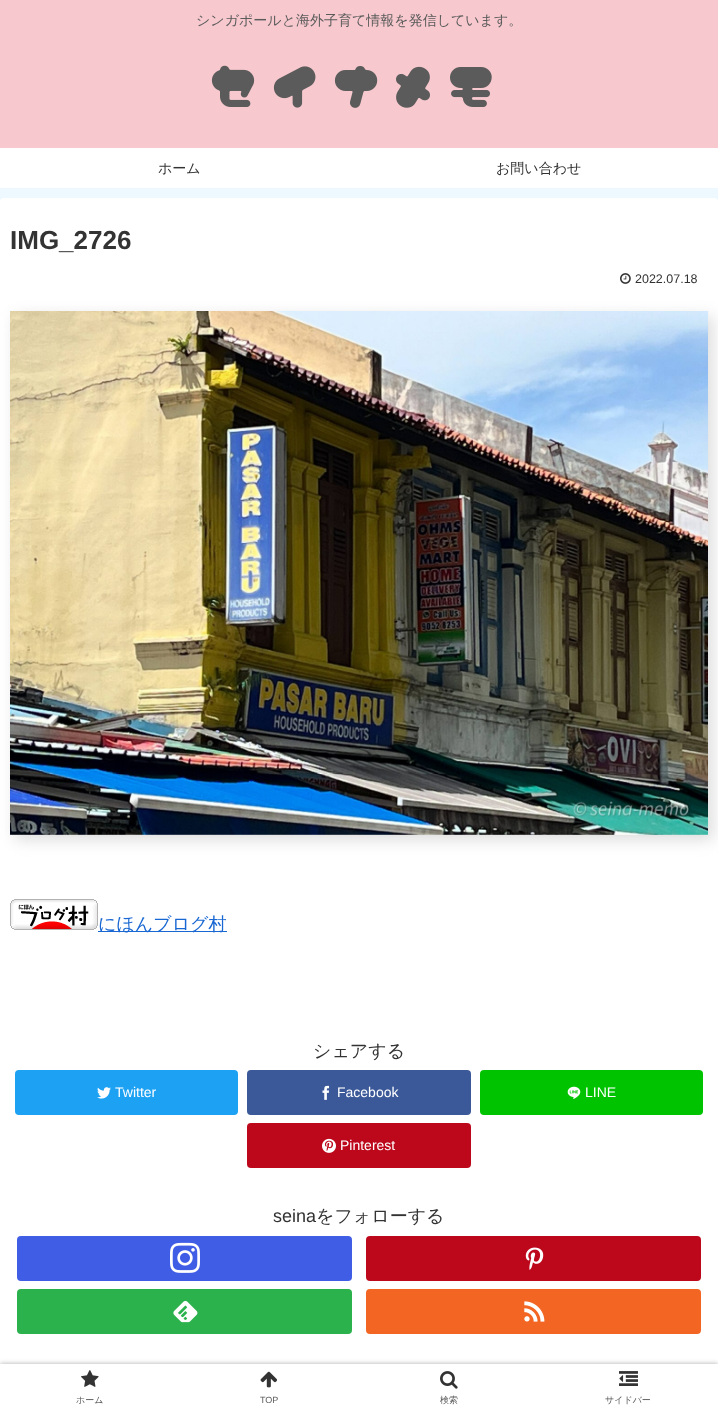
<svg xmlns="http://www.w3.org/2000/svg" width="718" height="1414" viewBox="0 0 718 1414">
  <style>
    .t1 { font: 500 14px WenQuanYi Zen Hei; fill: #5b5b5b; }
    .t2 { font: 500 14px WenQuanYi Zen Hei; fill: #333; }
    .t3 { font: bold 26px Liberation Sans; fill: #333; }
    .t4 { font: 12.5px Liberation Sans; fill: #333; }
    .t5 { font: 500 18px WenQuanYi Zen Hei; fill: #1967d2; }
    .t6 { font: 500 18px WenQuanYi Zen Hei; fill: #333; }
    .t7 { font: 14px Liberation Sans; fill: #fff; }
    .t8 { font: 18px Liberation Sans; fill: #333; }
    .t9 { font: 500 9px WenQuanYi Zen Hei; fill: #5b5b5b; }
    .t10 { font: 9px Liberation Sans; fill: #5b5b5b; }
  </style>
  <rect width="100%" height="100%" fill="#eef9ff"/>
  <rect x="0" y="0" width="718" height="148" fill="#f7c9ce"/>
  <text x="196" y="25" class="t1">シンガポールと海外子育て情報を発信しています。</text>
  <image x="211" y="65" width="281" height="43" href="images/1.png"/>
  <rect x="0" y="148" width="718" height="40" fill="#fff"/>
  <text x="158" y="173" class="t2">ホーム</text>
  <text x="496" y="173" class="t2">お問い合わせ</text>
  <rect x="0" y="198" width="718" height="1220" rx="4" fill="#fff"/>
  <text x="10" y="249" class="t3">IMG_2726</text>
  <image x="620" y="273" width="11" height="11" href="images/2.png"/>
  <text x="635" y="283" class="t4">2022.07.18</text>
  <rect x="15" y="316" width="698" height="524" fill="#ddd" filter="blur(7.5px)"/>
  <image x="10" y="311" width="698" height="524" href="images/3.png"/>
  <image x="10" y="899" width="88" height="31" href="images/4.png"/>
  <rect x="98" y="931" width="129" height="1" fill="#1967d2"/>
  <text x="98" y="930" class="t5">にほんブログ村</text>
  <text x="313" y="1057" class="t6">シェアする</text>
  <rect x="15" y="1070" width="223" height="45" rx="4" fill="#1da1f2"/>
  <image x="97" y="1087" width="14" height="12" href="images/5.png"/>
  <text x="115" y="1097" class="t7">Twitter</text>
  <rect x="247" y="1070" width="224" height="45" rx="4" fill="#3b5998"/>
  <image x="322" y="1085" width="8" height="15" href="images/6.png"/>
  <text x="337" y="1097" class="t7">Facebook</text>
  <rect x="480" y="1070" width="223" height="45" rx="4" fill="#00c300"/>
  <image x="567" y="1086" width="14" height="13" href="images/7.png"/>
  <text x="585" y="1097" class="t7">LINE</text>
  <rect x="247" y="1123" width="224" height="45" rx="4" fill="#bd081c"/>
  <image x="322" y="1138" width="14" height="15" href="images/8.png"/>
  <text x="340" y="1150" class="t7">Pinterest</text>
  <text x="273" y="1222" class="t8">seina</text>
  <text x="316" y="1222" class="t6">をフォローする</text>
  <rect x="17" y="1236" width="335" height="45" rx="4" fill="#405de6"/>
  <image x="170" y="1242" width="30" height="31" href="images/9.png"/>
  <rect x="366" y="1236" width="335" height="45" rx="4" fill="#bd081c"/>
  <image x="525" y="1247" width="19" height="23" href="images/10.png"/>
  <rect x="17" y="1289" width="335" height="45" rx="4" fill="#2bb24c"/>
  <image x="173" y="1300" width="25" height="23" href="images/11.png"/>
  <rect x="366" y="1289" width="335" height="45" rx="4" fill="#f26522"/>
  <image x="524" y="1301" width="21" height="21" href="images/12.png"/>
  <rect x="0" y="1364" width="718" height="50" fill="#a9a9a9" filter="blur(2.5px)"/>
  <rect x="0" y="1364" width="718" height="50" fill="#fff"/>
  <image x="81" y="1370" width="18" height="17" href="images/13.png"/>
  <text x="76" y="1403" class="t9">ホーム</text>
  <image x="260" y="1371" width="17" height="17" href="images/14.png"/>
  <text x="260" y="1403" class="t10">TOP</text>
  <image x="440" y="1371" width="18" height="18" href="images/15.png"/>
  <text x="440" y="1403" class="t9">検索</text>
  <image x="619" y="1371" width="19" height="15" href="images/16.png"/>
  <text x="605" y="1403" class="t9">サイドバー</text>
</svg>
